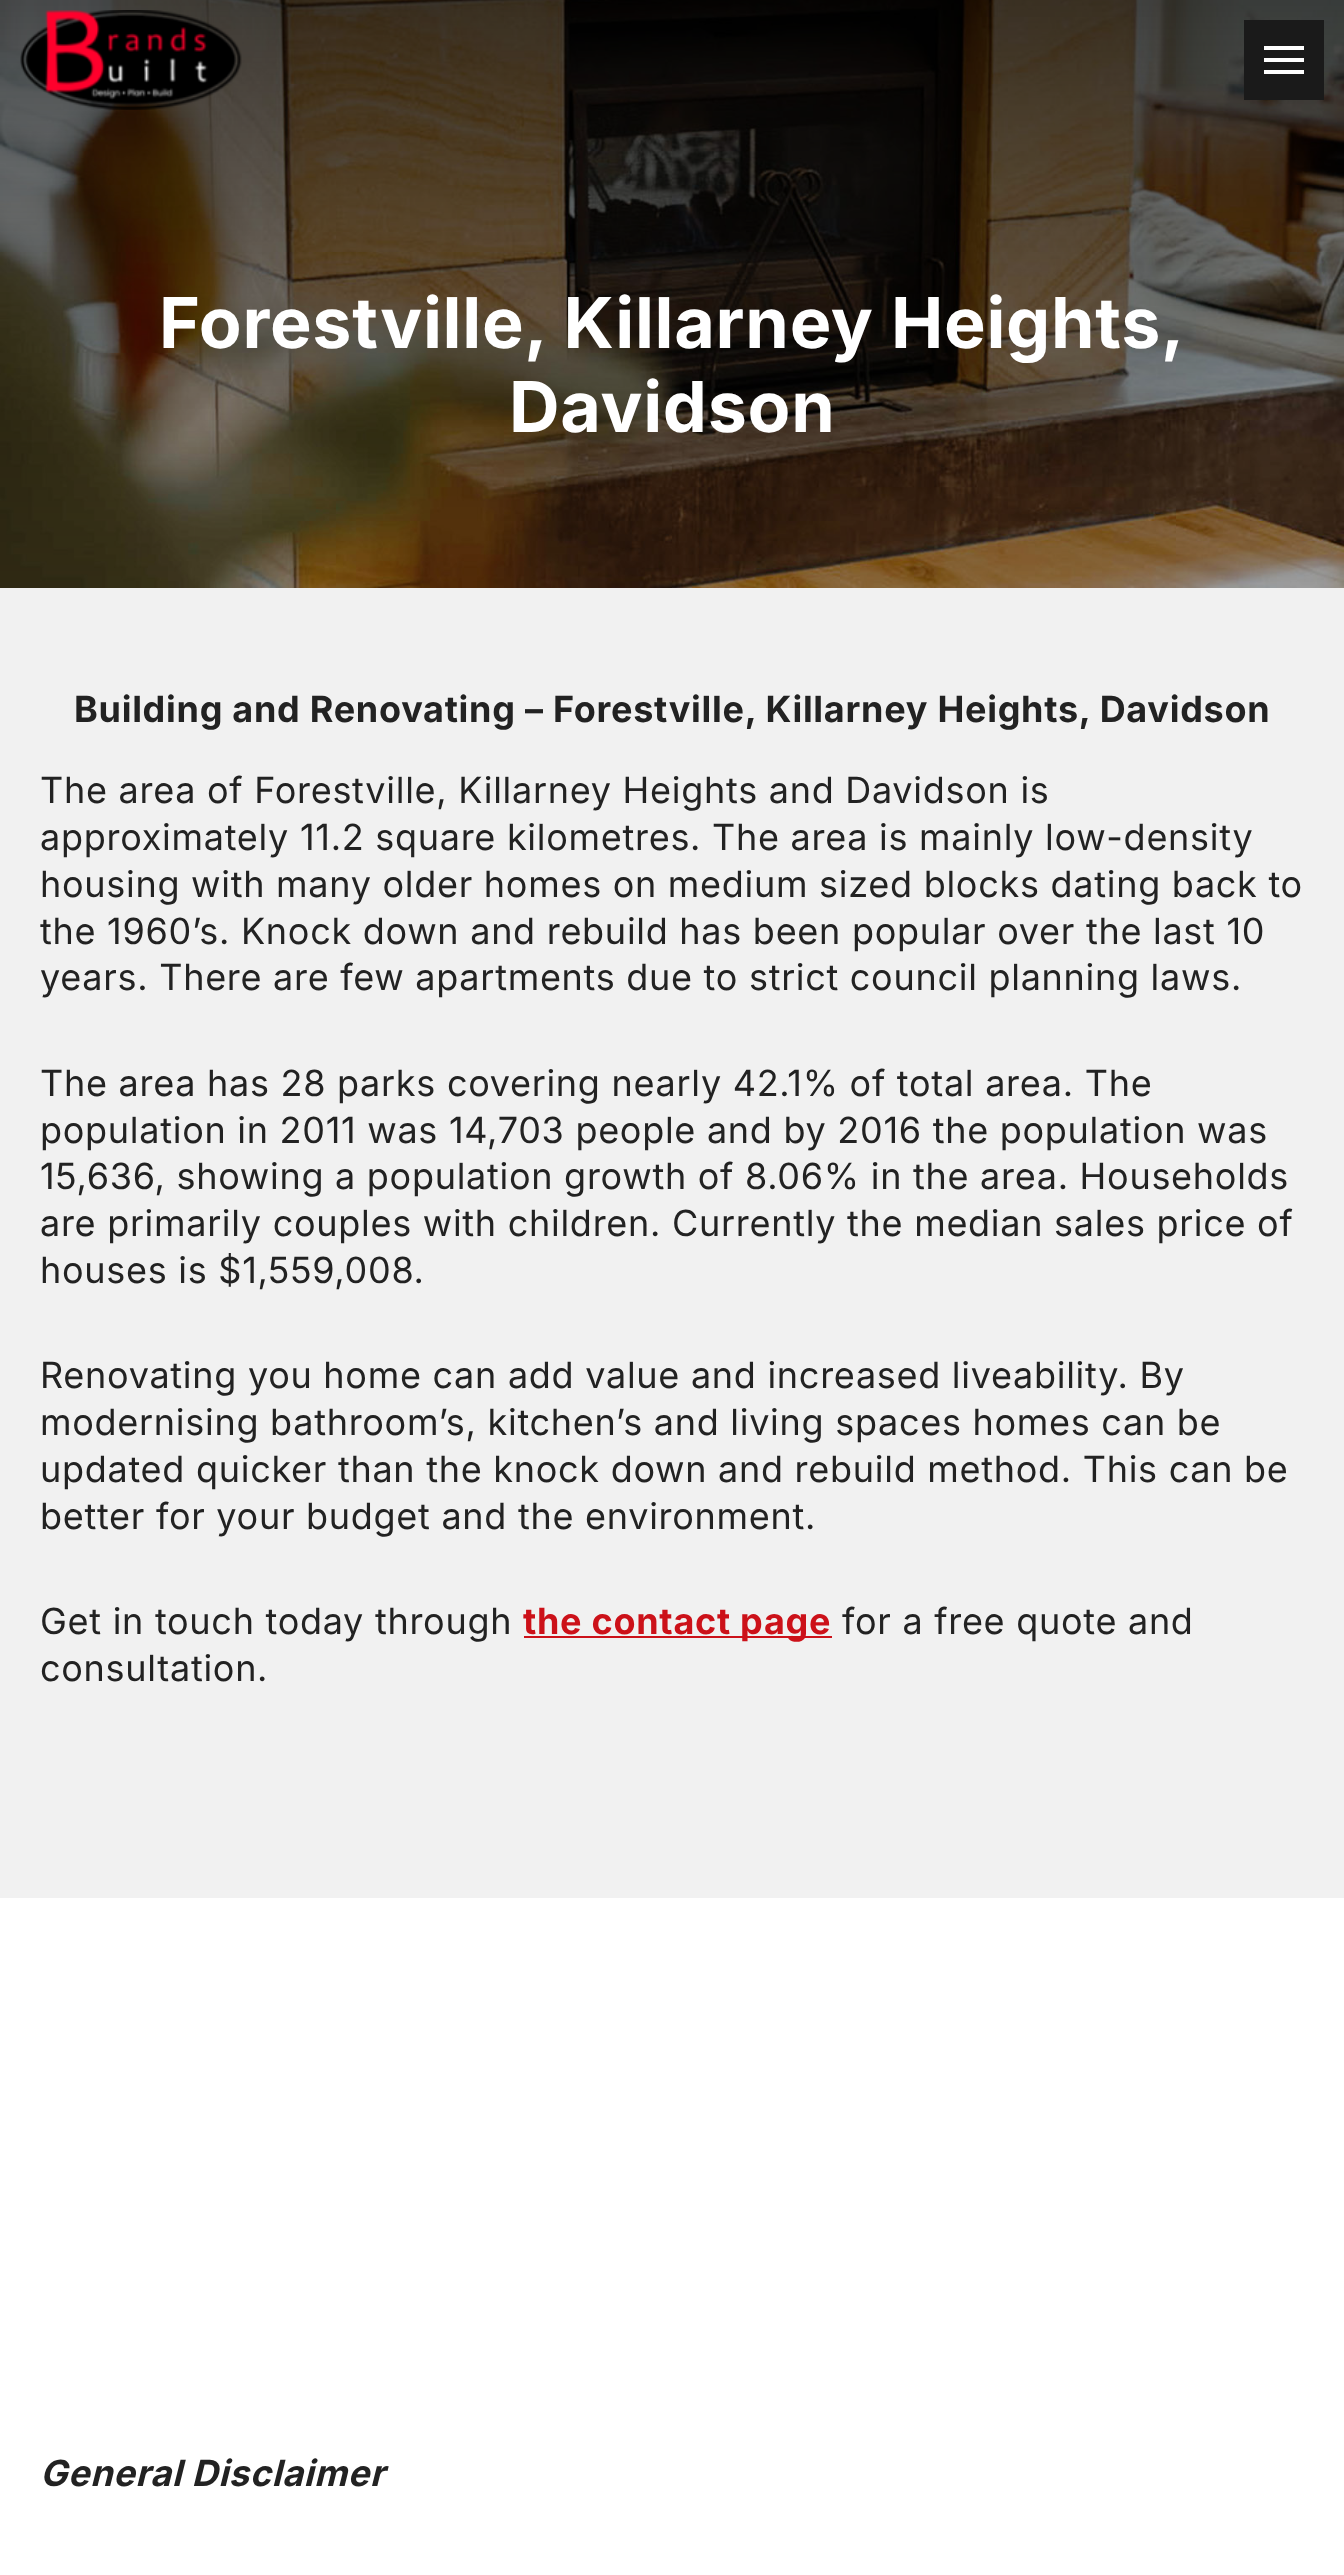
<svg xmlns="http://www.w3.org/2000/svg" width="1344" height="2575" viewBox="0 0 1344 2575">
  <style>
    .t1 { font: bold 70px Inter; letter-spacing: 0.72px; fill: #fff; }
    .t2 { font: bold 36px Inter; letter-spacing: 0.72px; fill: #222; }
    .t3 { font: 36px Inter; letter-spacing: 0.72px; fill: #222; }
    .t4 { font: bold 36px Inter; letter-spacing: 0.72px; fill: #cc1119; }
    .t5 { font: italic bold 36px Inter; letter-spacing: 0.72px; fill: #222; }
  </style>
  <rect width="100%" height="100%" fill="#fff"/>
  <image x="0" y="0" width="1344" height="588" href="images/2.png"/>
  <image x="20" y="10" width="222" height="100" href="images/1.png"/>
  <rect x="1244" y="20" width="80" height="80" fill="#1a1a1a"/>
  <rect x="1264" y="46" width="40" height="4" fill="#fff"/>
  <rect x="1264" y="58" width="40" height="4" fill="#fff"/>
  <rect x="1264" y="70" width="40" height="4" fill="#fff"/>
  <text x="159" y="348" class="t1">Forestville, Killarney Heights,</text>
  <text x="509" y="432" class="t1">Davidson</text>
  <rect x="0" y="588" width="1344" height="1310" fill="#f1f1f1"/>
  <text x="74" y="722" class="t2">Building and Renovating – Forestville, Killarney Heights, Davidson</text>
  <text x="40" y="803" class="t3">The area of Forestville, Killarney Heights and Davidson is</text>
  <text x="40" y="850" class="t3">approximately 11.2 square kilometres. The area is mainly low-density</text>
  <text x="40" y="897" class="t3">housing with many older homes on medium sized blocks dating back to</text>
  <text x="40" y="944" class="t3">the 1960’s. Knock down and rebuild has been popular over the last 10</text>
  <text x="40" y="990" class="t3">years. There are few apartments due to strict council planning laws.</text>
  <text x="40" y="1096" class="t3">The area has 28 parks covering nearly 42.1% of total area. The</text>
  <text x="40" y="1143" class="t3">population in 2011 was 14,703 people and by 2016 the population was</text>
  <text x="40" y="1189" class="t3">15,636, showing a population growth of 8.06% in the area. Households</text>
  <text x="40" y="1236" class="t3">are primarily couples with children. Currently the median sales price of</text>
  <text x="40" y="1283" class="t3">houses is $1,559,008.</text>
  <text x="40" y="1388" class="t3">Renovating you home can add value and increased liveability. By</text>
  <text x="40" y="1435" class="t3">modernising bathroom’s, kitchen’s and living spaces homes can be</text>
  <text x="40" y="1482" class="t3">updated quicker than the knock down and rebuild method. This can be</text>
  <text x="40" y="1529" class="t3">better for your budget and the environment.</text>
  <text x="40" y="1634" class="t3">Get in touch today through</text>
  <rect x="524" y="1636" width="308" height="2" fill="#cc1119"/>
  <text x="523" y="1634" class="t4">the contact page</text>
  <text x="842" y="1634" class="t3">for a free quote and</text>
  <text x="40" y="1681" class="t3">consultation.</text>
  <text x="40" y="2486" class="t5">General Disclaimer</text>
</svg>
